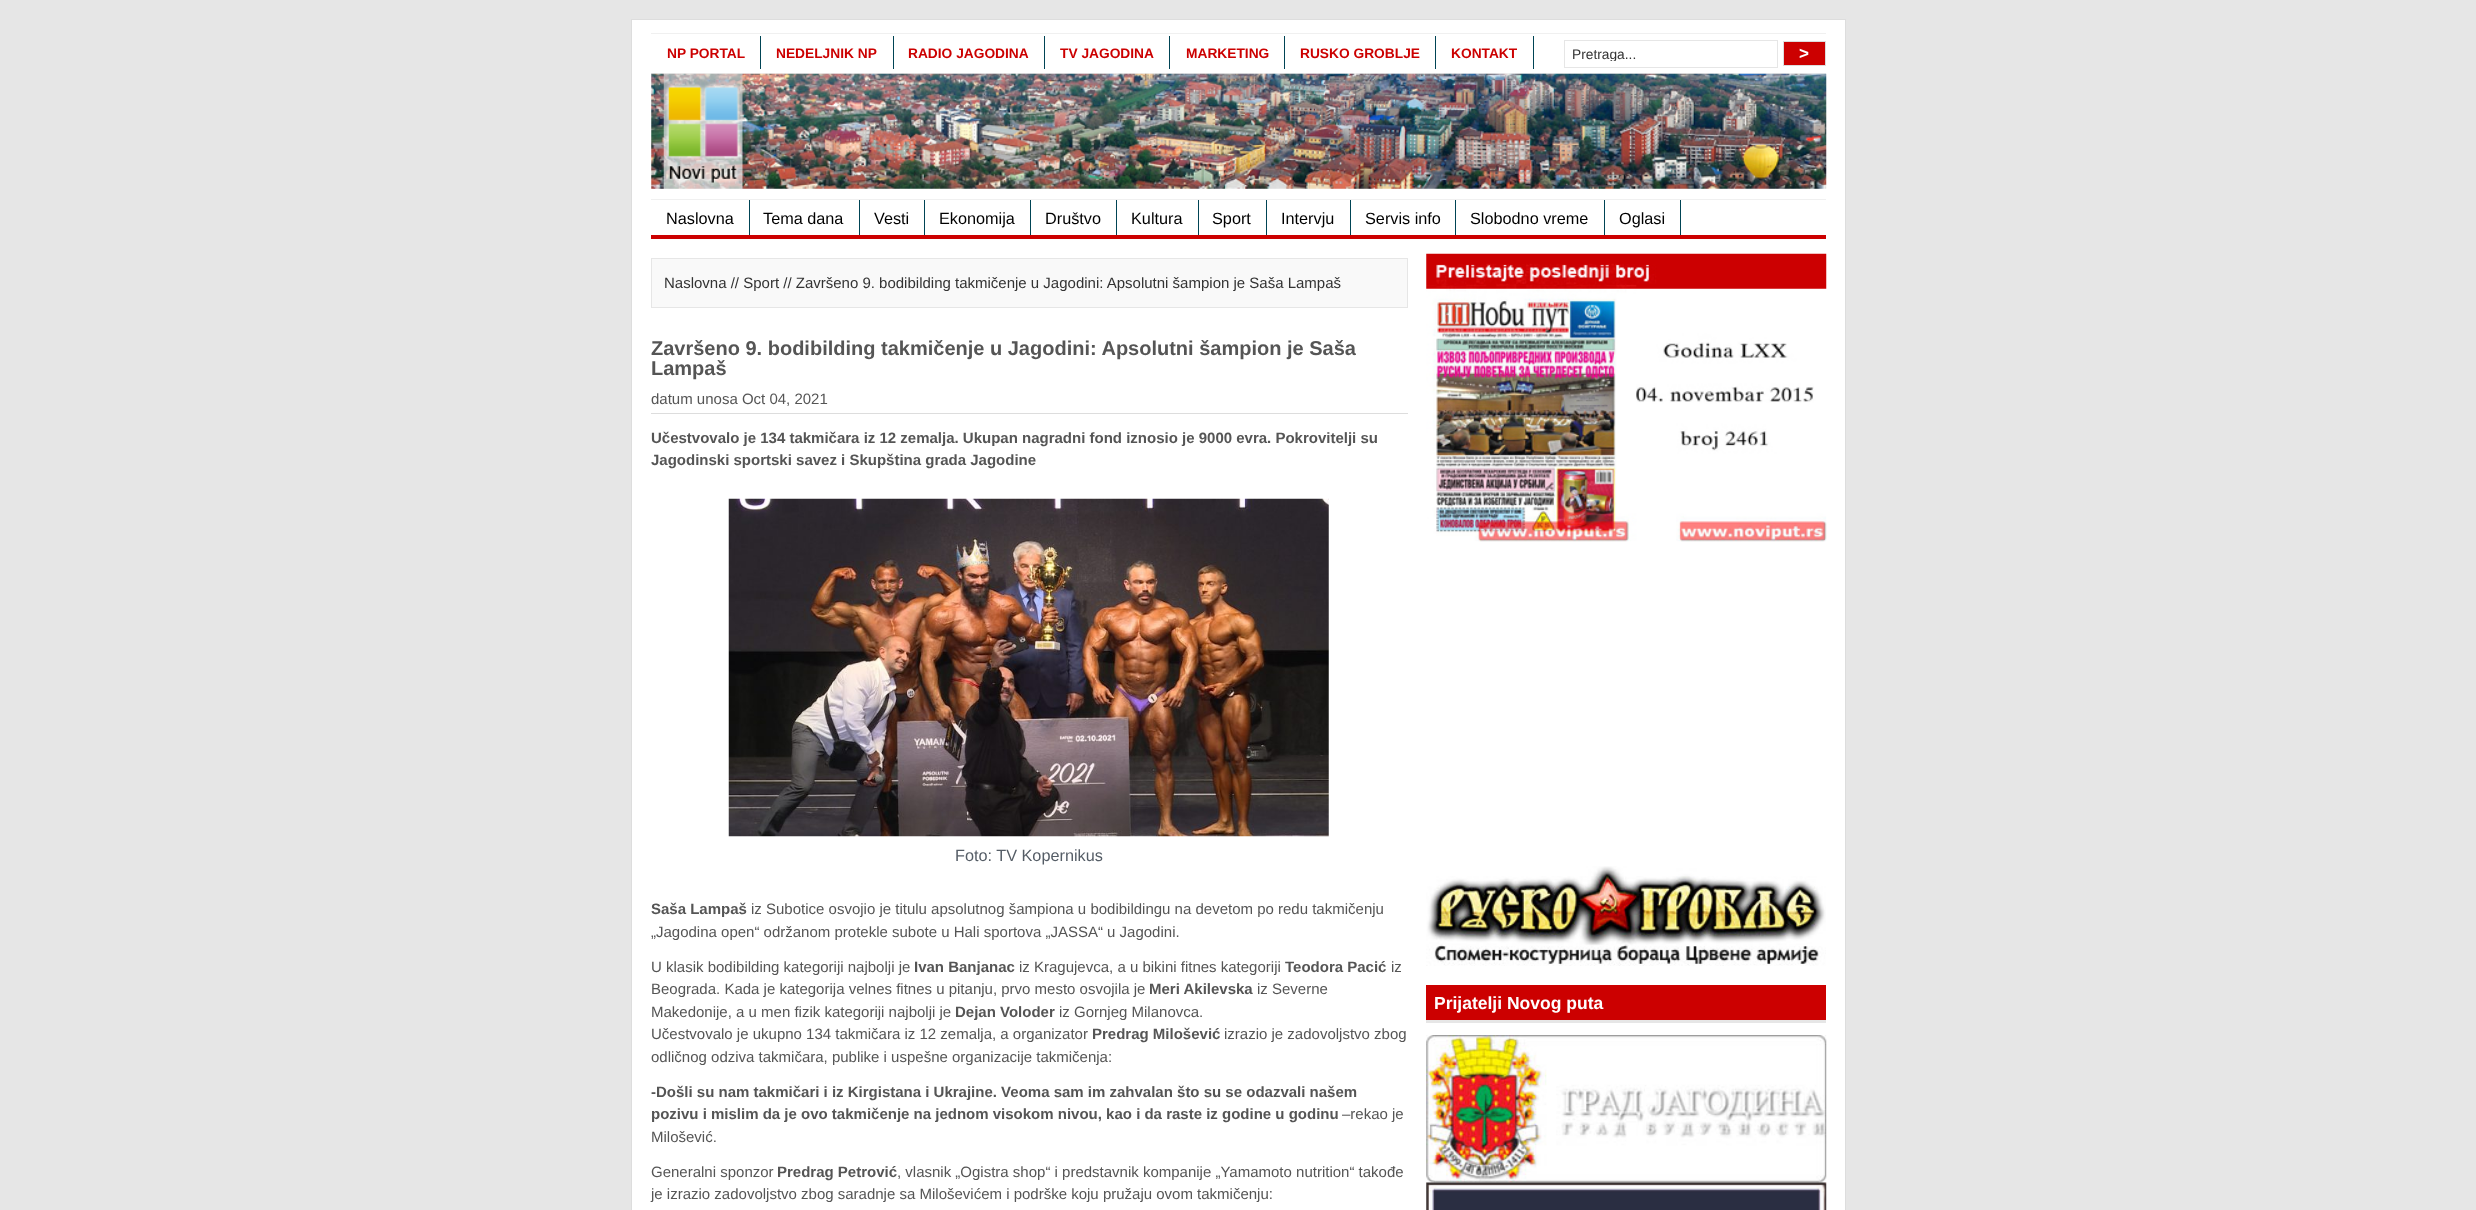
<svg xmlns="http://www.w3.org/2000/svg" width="2476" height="1210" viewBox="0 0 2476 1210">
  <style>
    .t1 { font: bold 13.75px Liberation Sans; fill: #c00; }
    .t2 { font: 13.75px Liberation Sans; fill: #333; }
    .t3 { font: bold 17px Liberation Sans; fill: #fff; }
    .t4 { font: 16.25px Liberation Sans; fill: #000; }
    .t5 { font: 15px Liberation Sans; fill: #333; }
    .t6 { font: bold 20px Liberation Sans; fill: #555; }
    .t7 { font: 15px Liberation Sans; fill: #555; }
    .t8 { font: bold 15px Liberation Sans; fill: #555; }
    .t9 { font: 16.25px Liberation Sans; fill: #555d66; }
    .t10 { font: bold 17.5px Liberation Sans; fill: #fff; }
  </style>
  <defs>
    <clipPath id="clip1"><rect x="1571" y="46" width="200" height="15"/></clipPath>
  </defs>
  <rect width="100%" height="100%" fill="#e6e6e6"/>
  <rect x="631.5" y="19.5" width="1214" height="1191" fill="#fff" stroke="#ddd"/>
  <rect x="651" y="33" width="1175" height="1" fill="#f0f0f0"/>
  <rect x="651" y="73" width="1175" height="1" fill="#f0f0f0"/>
  <rect x="760" y="36" width="1" height="33" fill="#045"/>
  <text x="667" y="58" class="t1">NP PORTAL</text>
  <rect x="893" y="36" width="1" height="33" fill="#045"/>
  <text x="776" y="58" class="t1">NEDELJNIK NP</text>
  <rect x="1044" y="36" width="1" height="33" fill="#045"/>
  <text x="908" y="58" class="t1">RADIO JAGODINA</text>
  <rect x="1169" y="36" width="1" height="33" fill="#045"/>
  <text x="1060" y="58" class="t1">TV JAGODINA</text>
  <rect x="1284" y="36" width="1" height="33" fill="#045"/>
  <text x="1186" y="58" class="t1">MARKETING</text>
  <rect x="1435" y="36" width="1" height="33" fill="#045"/>
  <text x="1300" y="58" class="t1">RUSKO GROBLJE</text>
  <rect x="1533" y="36" width="1" height="33" fill="#045"/>
  <text x="1451" y="58" class="t1">KONTAKT</text>
  <rect x="1564.5" y="40.5" width="213" height="27" fill="none" stroke="#e6e6e6"/>
  <g clip-path="url(#clip1)">
    <text x="1572" y="59" class="t2">Pretraga...</text>
  </g>
  <rect x="1783.5" y="41.5" width="42" height="24" fill="#c00" stroke="#ddd"/>
  <text x="1799" y="59" class="t3">&gt;</text>
  <image x="651" y="73" width="1176" height="116" href="images/1.png"/>
  <rect x="651" y="199" width="1175" height="1" fill="#f0f0f0"/>
  <rect x="651" y="235" width="1175" height="4" fill="#c00"/>
  <rect x="749" y="200" width="1" height="35" fill="#045"/>
  <text x="666" y="224" class="t4">Naslovna</text>
  <rect x="859" y="200" width="1" height="35" fill="#045"/>
  <text x="763" y="224" class="t4">Tema dana</text>
  <rect x="924" y="200" width="1" height="35" fill="#045"/>
  <text x="874" y="224" class="t4">Vesti</text>
  <rect x="1030" y="200" width="1" height="35" fill="#045"/>
  <text x="939" y="224" class="t4">Ekonomija</text>
  <rect x="1116" y="200" width="1" height="35" fill="#045"/>
  <text x="1045" y="224" class="t4">Društvo</text>
  <rect x="1198" y="200" width="1" height="35" fill="#045"/>
  <text x="1131" y="224" class="t4">Kultura</text>
  <rect x="1266" y="200" width="1" height="35" fill="#045"/>
  <text x="1212" y="224" class="t4">Sport</text>
  <rect x="1350" y="200" width="1" height="35" fill="#045"/>
  <text x="1281" y="224" class="t4">Intervju</text>
  <rect x="1455" y="200" width="1" height="35" fill="#045"/>
  <text x="1365" y="224" class="t4">Servis info</text>
  <rect x="1604" y="200" width="1" height="35" fill="#045"/>
  <text x="1470" y="224" class="t4">Slobodno vreme</text>
  <rect x="1680" y="200" width="1" height="35" fill="#045"/>
  <text x="1619" y="224" class="t4">Oglasi</text>
  <rect x="651.5" y="258.5" width="756" height="49" fill="#f9f9f9" stroke="#e6e6e6"/>
  <text x="664" y="288" class="t5">Naslovna // Sport // Završeno 9. bodibilding takmičenje u Jagodini: Apsolutni šampion je Saša Lampaš</text>
  <text x="651" y="355" class="t6">Završeno 9. bodibilding takmičenje u Jagodini: Apsolutni šampion je Saša</text>
  <text x="651" y="375" class="t6">Lampaš</text>
  <rect x="651" y="413" width="757" height="1" fill="#ddd"/>
  <text x="651" y="404" class="t7">datum unosa Oct 04, 2021</text>
  <text x="651" y="443" class="t8">Učestvovalo je 134 takmičara iz 12 zemalja. Ukupan nagradni fond iznosio je 9000 evra. Pokrovitelji su</text>
  <text x="651" y="465" class="t8">Jagodinski sportski savez i Skupština grada Jagodine</text>
  <image x="728" y="498" width="601" height="339" href="images/2.png"/>
  <text x="955" y="861" class="t9">Foto: TV Kopernikus</text>
  <text x="651" y="914" class="t8">Saša Lampaš</text>
  <text x="751" y="914" class="t7">iz Subotice osvojio je titulu apsolutnog šampiona u bodibildingu na devetom po redu takmičenju</text>
  <text x="651" y="937" class="t7">„Jagodina open“ održanom protekle subote u Hali sportova „JASSA“ u Jagodini.</text>
  <text x="651" y="972" class="t7">U klasik bodibilding kategoriji najbolji je</text>
  <text x="914" y="972" class="t8">Ivan Banjanac</text>
  <text x="1019" y="972" class="t7">iz Kragujevca, a u bikini fitnes kategoriji</text>
  <text x="1285" y="972" class="t8">Teodora Pacić</text>
  <text x="1391" y="972" class="t7">iz</text>
  <text x="651" y="994" class="t7">Beograda. Kada je kategorija velnes fitnes u pitanju, prvo mesto osvojila je</text>
  <text x="1149" y="994" class="t8">Meri Akilevska</text>
  <text x="1257" y="994" class="t7">iz Severne</text>
  <text x="651" y="1017" class="t7">Makedonije, a u men fizik kategoriji najbolji je</text>
  <text x="955" y="1017" class="t8">Dejan Voloder</text>
  <text x="1059" y="1017" class="t7">iz Gornjeg Milanovca.</text>
  <text x="651" y="1039" class="t7">Učestvovalo je ukupno 134 takmičara iz 12 zemalja, a organizator</text>
  <text x="1092" y="1039" class="t8">Predrag Milošević</text>
  <text x="1224" y="1039" class="t7">izrazio je zadovoljstvo zbog</text>
  <text x="651" y="1062" class="t7">odličnog odziva takmičara, publike i uspešne organizacije takmičenja:</text>
  <text x="651" y="1097" class="t8">-Došli su nam takmičari i iz Kirgistana i Ukrajine. Veoma sam im zahvalan što su se odazvali našem</text>
  <text x="651" y="1119" class="t8">pozivu i mislim da je ovo takmičenje na jednom visokom nivou, kao i da raste iz godine u godinu</text>
  <text x="1342" y="1119" class="t7">–rekao je</text>
  <text x="651" y="1142" class="t7">Milošević.</text>
  <text x="651" y="1177" class="t7">Generalni sponzor</text>
  <text x="777" y="1177" class="t8">Predrag Petrović</text>
  <text x="897" y="1177" class="t7">, vlasnik „Ogistra shop“ i predstavnik kompanije „Yamamoto nutrition“ takođe</text>
  <text x="651" y="1199" class="t7">je izrazio zadovoljstvo zbog saradnje sa Miloševićem i podrške koju pružaju ovom takmičenju:</text>
  <image x="1426" y="253" width="401" height="289" href="images/3.png"/>
  <image x="1426" y="866" width="400" height="100" href="images/4.png"/>
  <rect x="1426" y="985" width="400" height="35" fill="#c00"/>
  <rect x="1426" y="1020" width="400" height="3" fill="#e6e6e6"/>
  <text x="1434" y="1009" class="t10">Prijatelji Novog puta</text>
  <image x="1426" y="1035" width="401" height="148" href="images/5.png"/>
  <image x="1426" y="1182" width="401" height="28" href="images/6.png"/>
</svg>
